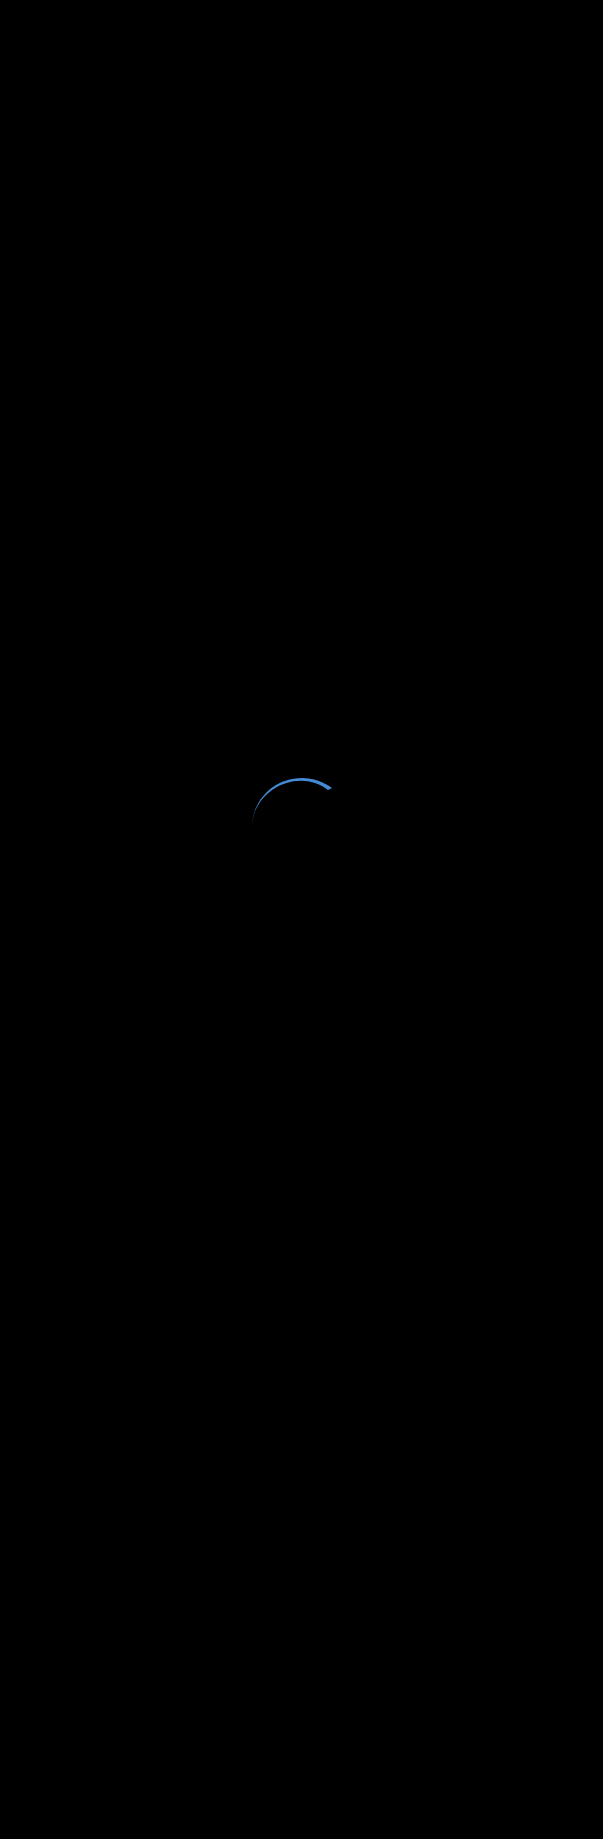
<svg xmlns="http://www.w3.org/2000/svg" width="603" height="1839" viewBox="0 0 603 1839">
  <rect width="100%" height="100%" fill="#000"/>
  <path d="M302 778C274 778 252 800 252 828C252 790 298 767 328 790L332 788C324 782 313 778 302 778Z" fill="#448bd6"/>
</svg>
